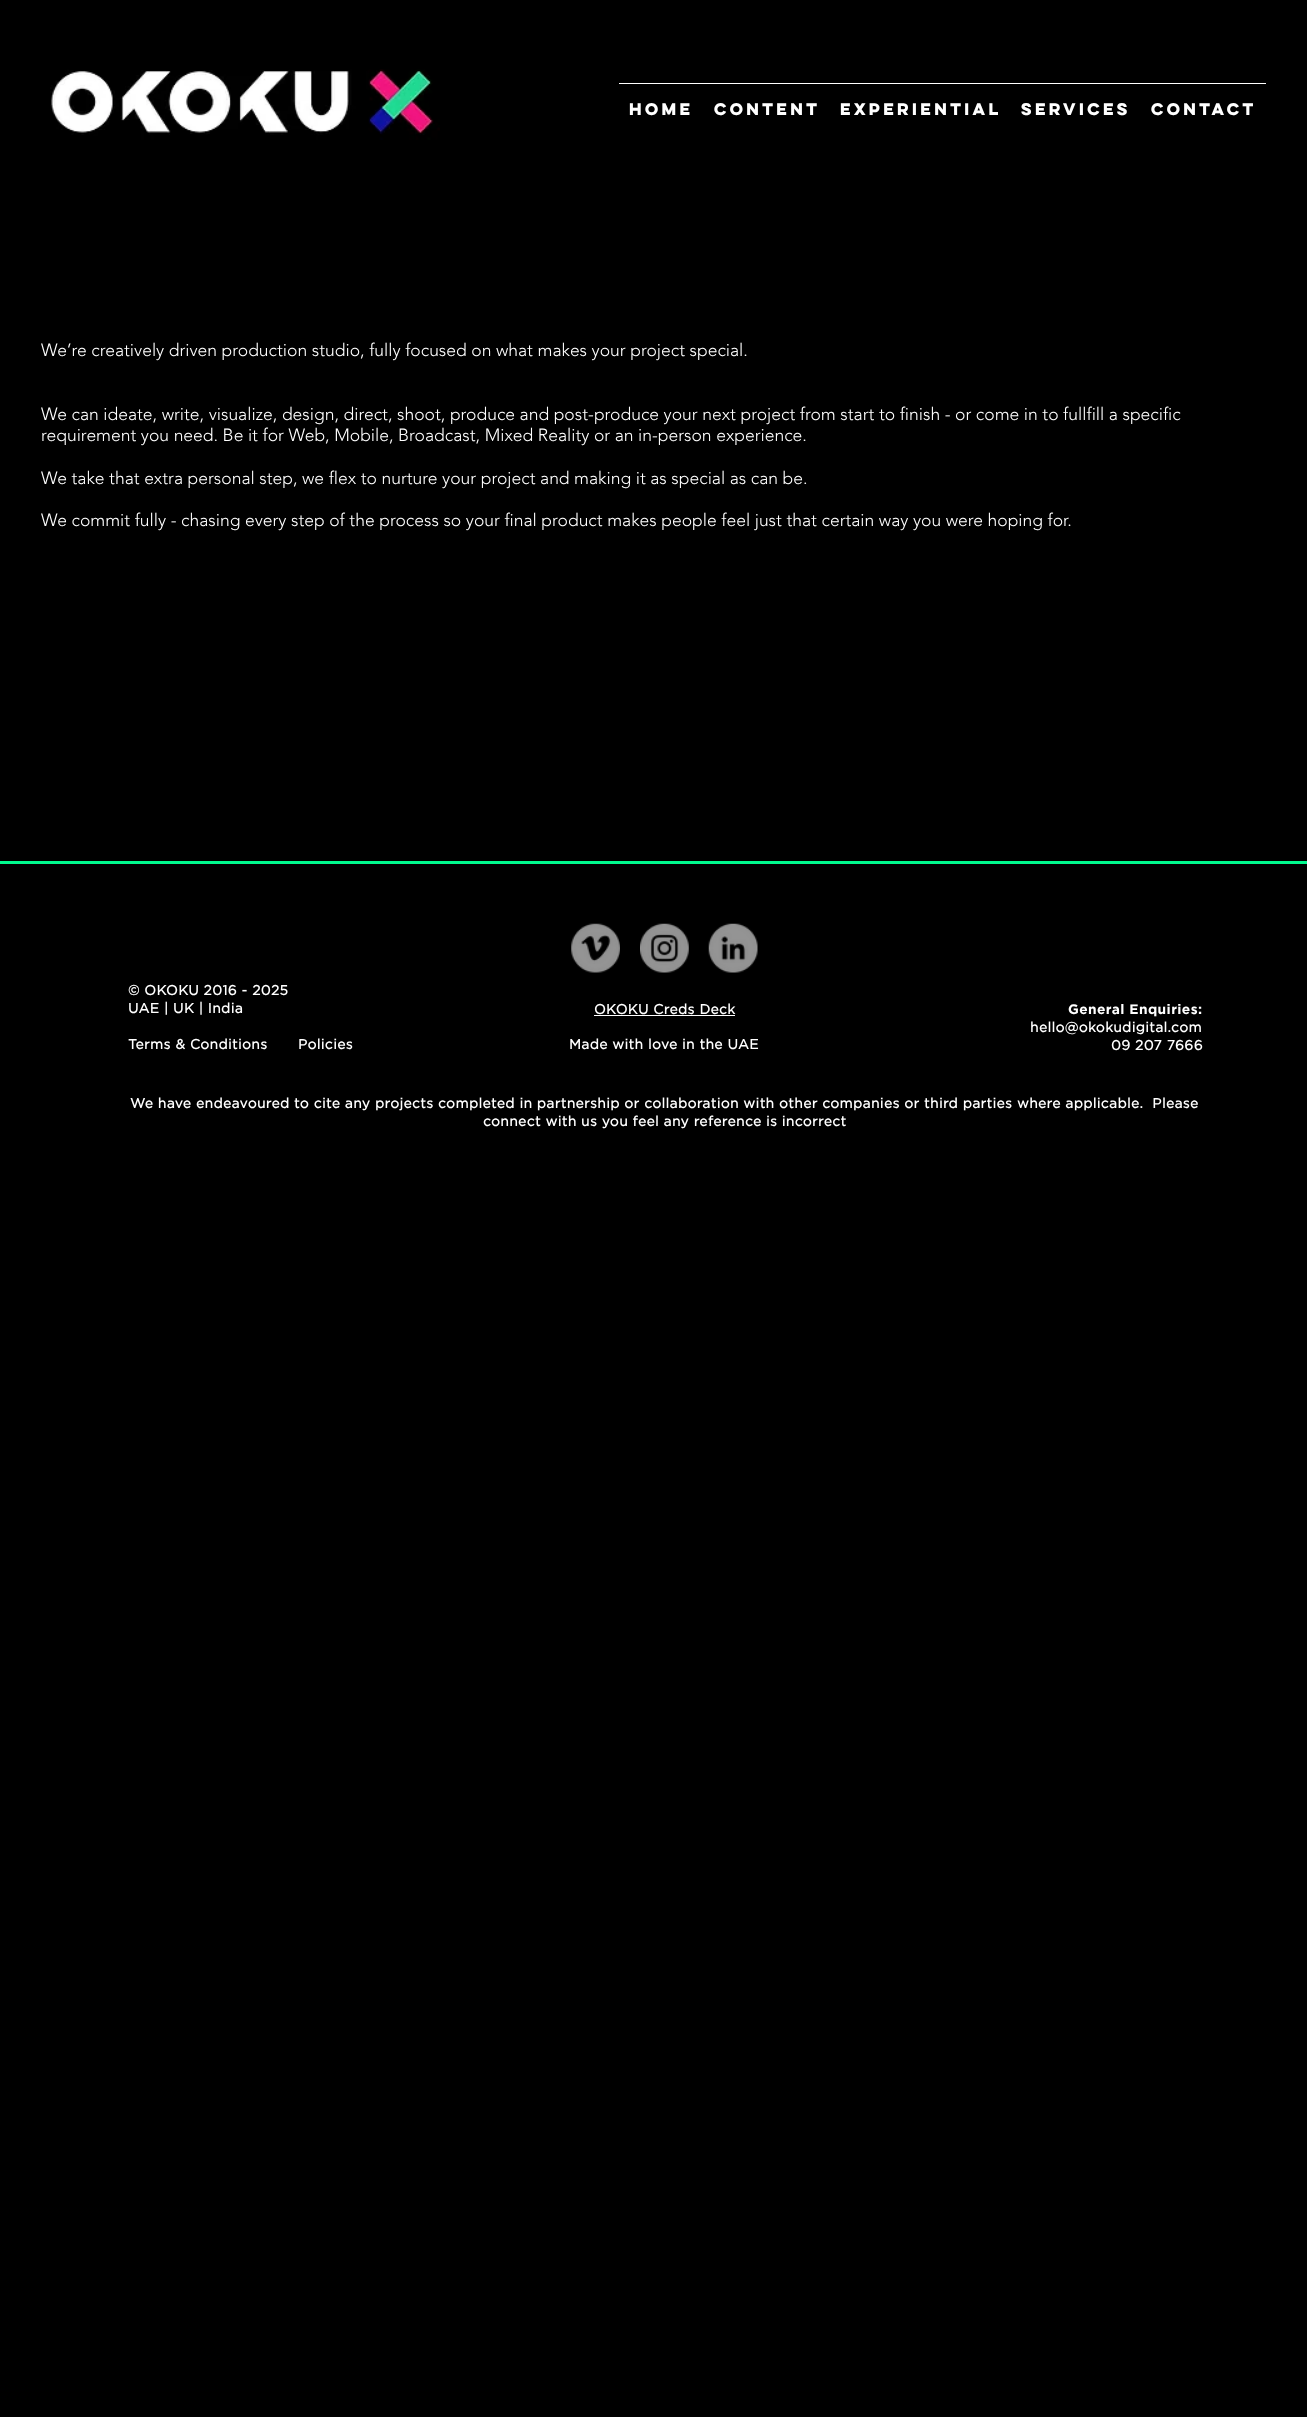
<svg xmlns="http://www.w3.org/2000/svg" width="1307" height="2417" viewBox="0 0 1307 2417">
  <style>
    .t1 { font: bold 15px 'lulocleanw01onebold'; fill: #fff; }
    .t2 { font: 300 17.5px 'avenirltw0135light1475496'; fill: #fff; }
    .t3 { font: bold 13.75px Gotham; letter-spacing: 0.41px; fill: #fff; }
    .t4 { font: bold 13.75px 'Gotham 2'; letter-spacing: 0.41px; fill: #fff; }
  </style>
  <rect width="100%" height="100%" fill="#000"/>
  <image x="50" y="69" width="390" height="71" href="images/1.png"/>
  <rect x="619" y="83" width="647" height="1" fill="#fff"/>
  <text x="629" y="115" class="t1">Home</text>
  <text x="714" y="115" class="t1">Content</text>
  <text x="840" y="115" class="t1">Experiential</text>
  <text x="1021" y="115" class="t1">Services</text>
  <text x="1151" y="115" class="t1">Contact</text>
  <text x="41" y="356" class="t2">We’re creatively driven production studio, fully focused on what makes your project special.</text>
  <text x="41" y="420" class="t2">We can ideate, write, visualize, design, direct, shoot, produce and post-produce your next project from start to finish - or come in to fullfill a specific</text>
  <text x="41" y="441" class="t2">requirement you need. Be it for Web, Mobile, Broadcast, Mixed Reality or an in-person experience.</text>
  <text x="41" y="484" class="t2">We take that extra personal step, we flex to nurture your project and making it as special as can be.</text>
  <text x="41" y="526" class="t2">We commit fully - chasing every step of the process so your final product makes people feel just that certain way you were hoping for.</text>
  <rect x="0" y="861" width="1307" height="3" fill="#00fa8e"/>
  <image x="571" y="923" width="49" height="50" href="images/2.png"/>
  <image x="640" y="923" width="49" height="50" href="images/3.png"/>
  <image x="708" y="923" width="50" height="50" href="images/4.png"/>
  <text x="128" y="995" class="t3">© OKOKU 2016 - 2025</text>
  <text x="128" y="1013" class="t3">UAE | UK | India</text>
  <text x="594" y="1014" class="t3">OKOKU Creds Deck</text>
  <rect x="594" y="1015" width="141" height="1" fill="#fff"/>
  <text x="1068" y="1014" class="t4">General Enquiries:</text>
  <text x="1030" y="1032" class="t3">hello@okokudigital.com</text>
  <text x="1111" y="1050" class="t3">09 207 7666</text>
  <text x="128" y="1049" class="t3">Terms &amp; Conditions</text>
  <text x="298" y="1049" class="t3">Policies</text>
  <text x="569" y="1049" class="t3">Made with love in the UAE</text>
  <text x="130" y="1108" class="t3" xml:space="preserve">We have endeavoured to cite any projects completed in partnership or collaboration with other companies or third parties where applicable.  Please</text>
  <text x="483" y="1126" class="t3">connect with us you feel any reference is incorrect</text>
</svg>
